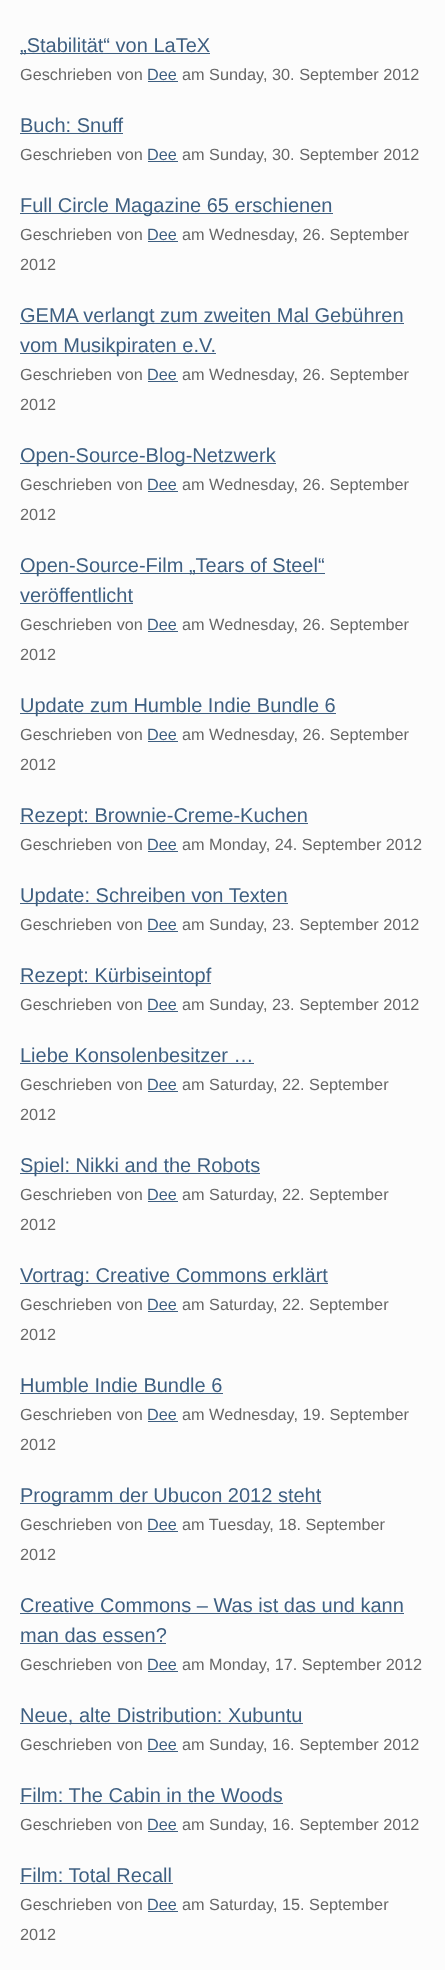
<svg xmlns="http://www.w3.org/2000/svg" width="445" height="1970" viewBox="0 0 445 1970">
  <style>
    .t1 { font: 20px Liberation Sans; fill: #3e5f81; }
    .t2 { font: 16.25px Liberation Sans; fill: #666; }
    .t3 { font: 16.25px Liberation Sans; fill: #3e5f81; }
  </style>
  <rect width="100%" height="100%" fill="#fcfcfc"/>
  <rect x="20" y="53" width="190" height="1" fill="#3e5f81"/>
  <text x="20" y="52" class="t1">„Stabilität“ von LaTeX</text>
  <text x="20" y="80" class="t2">Geschrieben von</text>
  <text x="147" y="80" class="t3">Dee</text>
  <rect x="148" y="81" width="30" height="1" fill="#3e5f81"/>
  <text x="182" y="80" class="t2">am Sunday, 30. September 2012</text>
  <text x="20" y="132" class="t1">Buch: Snuff</text>
  <rect x="20" y="133" width="103" height="1" fill="#3e5f81"/>
  <text x="20" y="160" class="t2">Geschrieben von</text>
  <text x="147" y="160" class="t3">Dee</text>
  <rect x="148" y="161" width="30" height="1" fill="#3e5f81"/>
  <text x="182" y="160" class="t2">am Sunday, 30. September 2012</text>
  <rect x="20" y="213" width="313" height="1" fill="#3e5f81"/>
  <text x="20" y="212" class="t1">Full Circle Magazine 65 erschienen</text>
  <text x="20" y="240" class="t2">Geschrieben von</text>
  <text x="147" y="240" class="t3">Dee</text>
  <rect x="148" y="241" width="30" height="1" fill="#3e5f81"/>
  <text x="182" y="240" class="t2">am Wednesday, 26. September</text>
  <text x="20" y="270" class="t2">2012</text>
  <rect x="20" y="323" width="384" height="1" fill="#3e5f81"/>
  <text x="20" y="322" class="t1">GEMA verlangt zum zweiten Mal Gebühren</text>
  <rect x="20" y="353" width="196" height="1" fill="#3e5f81"/>
  <text x="20" y="352" class="t1">vom Musikpiraten e.V.</text>
  <text x="20" y="380" class="t2">Geschrieben von</text>
  <text x="147" y="380" class="t3">Dee</text>
  <rect x="148" y="381" width="30" height="1" fill="#3e5f81"/>
  <text x="182" y="380" class="t2">am Wednesday, 26. September</text>
  <text x="20" y="410" class="t2">2012</text>
  <rect x="20" y="463" width="256" height="1" fill="#3e5f81"/>
  <text x="20" y="462" class="t1">Open-Source-Blog-Netzwerk</text>
  <text x="20" y="490" class="t2">Geschrieben von</text>
  <text x="147" y="490" class="t3">Dee</text>
  <rect x="148" y="491" width="30" height="1" fill="#3e5f81"/>
  <text x="182" y="490" class="t2">am Wednesday, 26. September</text>
  <text x="20" y="520" class="t2">2012</text>
  <rect x="20" y="573" width="305" height="1" fill="#3e5f81"/>
  <text x="20" y="572" class="t1">Open-Source-Film „Tears of Steel“</text>
  <text x="20" y="602" class="t1">veröffentlicht</text>
  <rect x="20" y="603" width="113" height="1" fill="#3e5f81"/>
  <text x="20" y="630" class="t2">Geschrieben von</text>
  <text x="147" y="630" class="t3">Dee</text>
  <rect x="148" y="631" width="30" height="1" fill="#3e5f81"/>
  <text x="182" y="630" class="t2">am Wednesday, 26. September</text>
  <text x="20" y="660" class="t2">2012</text>
  <rect x="20" y="713" width="316" height="1" fill="#3e5f81"/>
  <text x="20" y="712" class="t1">Update zum Humble Indie Bundle 6</text>
  <text x="20" y="740" class="t2">Geschrieben von</text>
  <text x="147" y="740" class="t3">Dee</text>
  <rect x="148" y="741" width="30" height="1" fill="#3e5f81"/>
  <text x="182" y="740" class="t2">am Wednesday, 26. September</text>
  <text x="20" y="770" class="t2">2012</text>
  <rect x="20" y="823" width="288" height="1" fill="#3e5f81"/>
  <text x="20" y="822" class="t1">Rezept: Brownie-Creme-Kuchen</text>
  <text x="20" y="850" class="t2">Geschrieben von</text>
  <text x="147" y="850" class="t3">Dee</text>
  <rect x="148" y="851" width="30" height="1" fill="#3e5f81"/>
  <text x="182" y="850" class="t2">am Monday, 24. September 2012</text>
  <rect x="20" y="903" width="268" height="1" fill="#3e5f81"/>
  <text x="20" y="902" class="t1">Update: Schreiben von Texten</text>
  <text x="20" y="930" class="t2">Geschrieben von</text>
  <text x="147" y="930" class="t3">Dee</text>
  <rect x="148" y="931" width="30" height="1" fill="#3e5f81"/>
  <text x="182" y="930" class="t2">am Sunday, 23. September 2012</text>
  <rect x="20" y="983" width="191" height="1" fill="#3e5f81"/>
  <text x="20" y="982" class="t1">Rezept: Kürbiseintopf</text>
  <text x="20" y="1010" class="t2">Geschrieben von</text>
  <text x="147" y="1010" class="t3">Dee</text>
  <rect x="148" y="1011" width="30" height="1" fill="#3e5f81"/>
  <text x="182" y="1010" class="t2">am Sunday, 23. September 2012</text>
  <text x="20" y="1062" class="t1">Liebe Konsolenbesitzer …</text>
  <rect x="20" y="1063" width="234" height="1" fill="#3e5f81"/>
  <text x="20" y="1090" class="t2">Geschrieben von</text>
  <text x="147" y="1090" class="t3">Dee</text>
  <rect x="148" y="1091" width="30" height="1" fill="#3e5f81"/>
  <text x="182" y="1090" class="t2">am Saturday, 22. September</text>
  <text x="20" y="1120" class="t2">2012</text>
  <rect x="20" y="1173" width="240" height="1" fill="#3e5f81"/>
  <text x="20" y="1172" class="t1">Spiel: Nikki and the Robots</text>
  <text x="20" y="1200" class="t2">Geschrieben von</text>
  <text x="147" y="1200" class="t3">Dee</text>
  <rect x="148" y="1201" width="30" height="1" fill="#3e5f81"/>
  <text x="182" y="1200" class="t2">am Saturday, 22. September</text>
  <text x="20" y="1230" class="t2">2012</text>
  <rect x="20" y="1283" width="308" height="1" fill="#3e5f81"/>
  <text x="20" y="1282" class="t1">Vortrag: Creative Commons erklärt</text>
  <text x="20" y="1310" class="t2">Geschrieben von</text>
  <text x="147" y="1310" class="t3">Dee</text>
  <rect x="148" y="1311" width="30" height="1" fill="#3e5f81"/>
  <text x="182" y="1310" class="t2">am Saturday, 22. September</text>
  <text x="20" y="1340" class="t2">2012</text>
  <text x="20" y="1392" class="t1">Humble Indie Bundle 6</text>
  <rect x="20" y="1393" width="203" height="1" fill="#3e5f81"/>
  <text x="20" y="1420" class="t2">Geschrieben von</text>
  <text x="147" y="1420" class="t3">Dee</text>
  <rect x="148" y="1421" width="30" height="1" fill="#3e5f81"/>
  <text x="182" y="1420" class="t2">am Wednesday, 19. September</text>
  <text x="20" y="1450" class="t2">2012</text>
  <rect x="20" y="1503" width="301" height="1" fill="#3e5f81"/>
  <text x="20" y="1502" class="t1">Programm der Ubucon 2012 steht</text>
  <text x="20" y="1530" class="t2">Geschrieben von</text>
  <text x="147" y="1530" class="t3">Dee</text>
  <rect x="148" y="1531" width="30" height="1" fill="#3e5f81"/>
  <text x="182" y="1530" class="t2">am Tuesday, 18. September</text>
  <text x="20" y="1560" class="t2">2012</text>
  <text x="20" y="1612" class="t1">Creative Commons – Was ist das und kann</text>
  <rect x="20" y="1613" width="384" height="1" fill="#3e5f81"/>
  <text x="20" y="1642" class="t1">man das essen?</text>
  <rect x="20" y="1643" width="146" height="1" fill="#3e5f81"/>
  <text x="20" y="1670" class="t2">Geschrieben von</text>
  <text x="147" y="1670" class="t3">Dee</text>
  <rect x="148" y="1671" width="30" height="1" fill="#3e5f81"/>
  <text x="182" y="1670" class="t2">am Monday, 17. September 2012</text>
  <rect x="20" y="1723" width="283" height="1" fill="#3e5f81"/>
  <text x="20" y="1722" class="t1">Neue, alte Distribution: Xubuntu</text>
  <text x="20" y="1750" class="t2">Geschrieben von</text>
  <text x="147" y="1750" class="t3">Dee</text>
  <rect x="148" y="1751" width="30" height="1" fill="#3e5f81"/>
  <text x="182" y="1750" class="t2">am Sunday, 16. September 2012</text>
  <text x="20" y="1802" class="t1">Film: The Cabin in the Woods</text>
  <rect x="20" y="1803" width="263" height="1" fill="#3e5f81"/>
  <text x="20" y="1830" class="t2">Geschrieben von</text>
  <text x="147" y="1830" class="t3">Dee</text>
  <rect x="148" y="1831" width="30" height="1" fill="#3e5f81"/>
  <text x="182" y="1830" class="t2">am Sunday, 16. September 2012</text>
  <text x="20" y="1882" class="t1">Film: Total Recall</text>
  <rect x="20" y="1883" width="153" height="1" fill="#3e5f81"/>
  <text x="20" y="1910" class="t2">Geschrieben von</text>
  <text x="147" y="1910" class="t3">Dee</text>
  <rect x="148" y="1911" width="30" height="1" fill="#3e5f81"/>
  <text x="182" y="1910" class="t2">am Saturday, 15. September</text>
  <text x="20" y="1940" class="t2">2012</text>
</svg>
